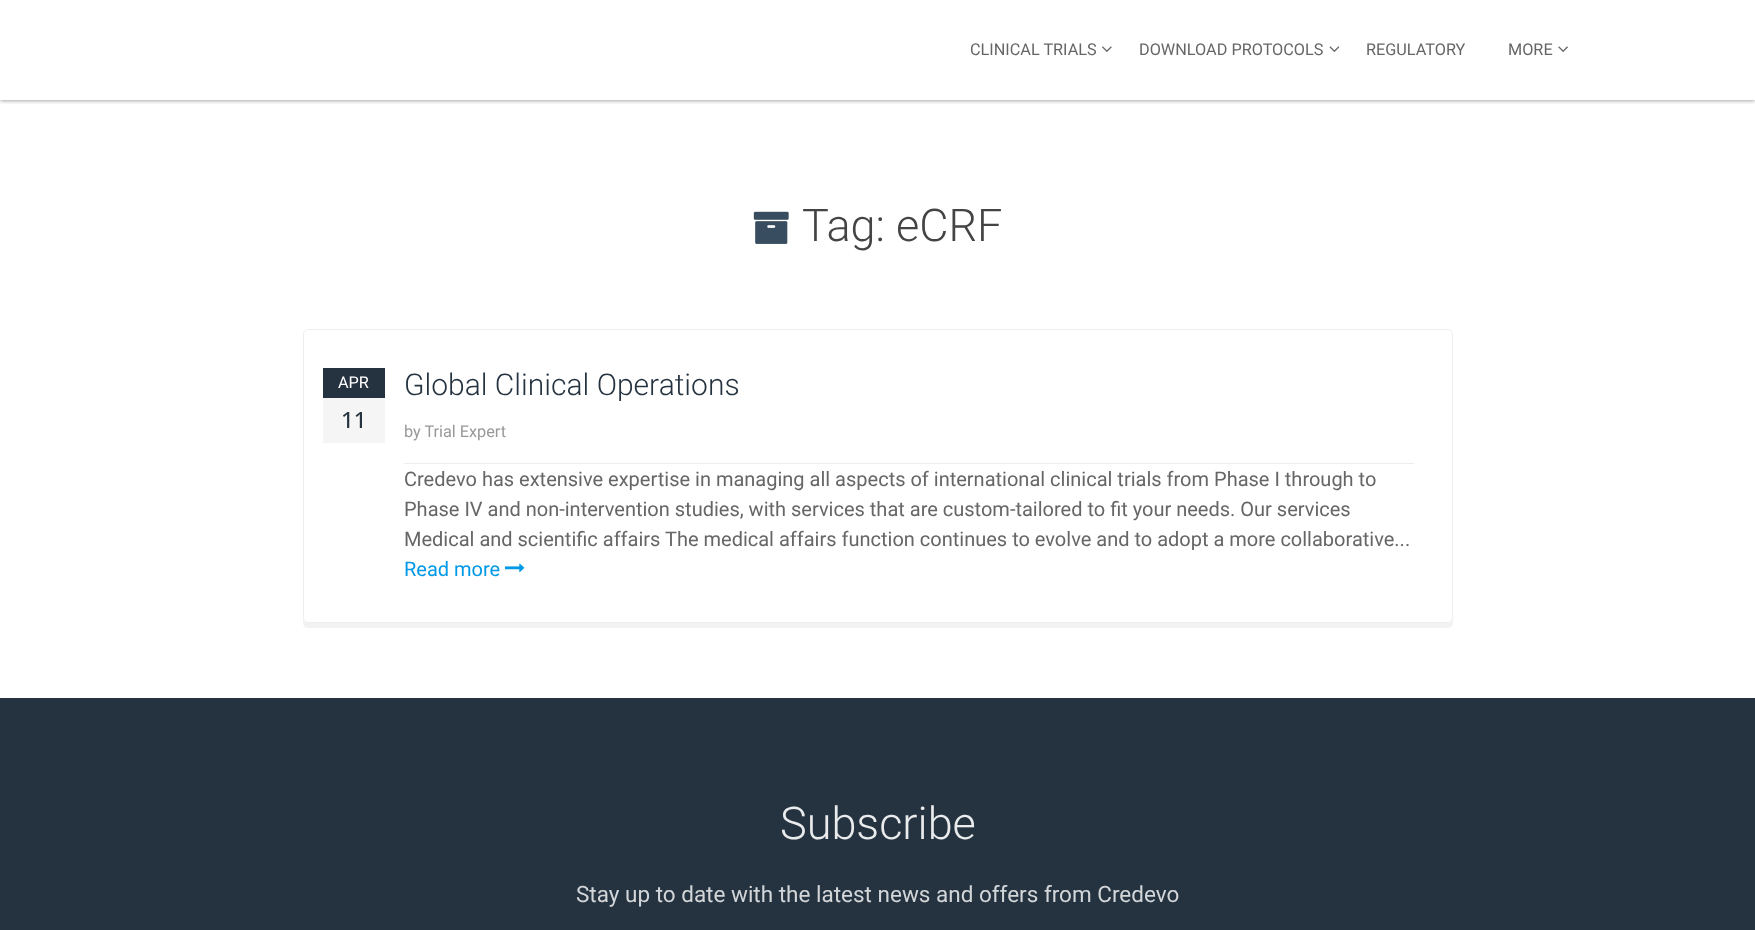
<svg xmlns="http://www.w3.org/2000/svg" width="1755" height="930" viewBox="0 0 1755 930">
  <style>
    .t1 { font: 16.25px Roboto; fill: #666; }
    .t2 { font: 300 45px Roboto; fill: #444; }
    .t3 { font: 16.25px Roboto; fill: #fff; }
    .t4 { font: 500 22.5px Open Sans; fill: #253340; }
    .t5 { font: 300 30px Roboto; fill: #253340; }
    .t6 { font: 16.25px Roboto; fill: #999; }
    .t7 { font: 20px Roboto; fill: #666; }
    .t8 { font: 20px Roboto; fill: #0099e5; }
    .t9 { font: 300 45px Roboto; fill: #e9ebec; }
    .t10 { font: 22.5px Roboto; fill: #d3d6d9; }
  </style>
  <defs>
    <clipPath id="clip1"><rect x="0" y="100" width="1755" height="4"/></clipPath>
    <clipPath id="clip2"><path d="M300 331H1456V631H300ZM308 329H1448C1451 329 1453 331 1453 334V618C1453 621 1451 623 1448 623H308C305 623 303 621 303 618V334C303 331 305 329 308 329Z" clip-rule="evenodd"/></clipPath>
  </defs>
  <rect width="100%" height="100%" fill="#fff"/>
  <g clip-path="url(#clip1)">
    <rect x="0" y="0" width="1755" height="100" fill="#00000080" filter="blur(2.5px)"/>
  </g>
  <text x="970" y="55" class="t1">CLINICAL TRIALS</text>
  <image x="1102" y="46" width="10" height="6" href="images/1.png"/>
  <text x="1139" y="55" class="t1">DOWNLOAD PROTOCOLS</text>
  <image x="1329" y="46" width="11" height="6" href="images/2.png"/>
  <text x="1366" y="55" class="t1">REGULATORY</text>
  <text x="1508" y="55" class="t1">MORE</text>
  <image x="1558" y="46" width="10" height="6" href="images/3.png"/>
  <image x="753" y="211" width="36" height="33" href="images/4.png"/>
  <text x="802" y="241" class="t2">Tag: eCRF</text>
  <g clip-path="url(#clip2)">
    <rect x="303" y="334" width="1150" height="294" rx="5" fill="#0000000d" filter="blur(0.5px)"/>
  </g>
  <rect x="303.5" y="329.5" width="1149" height="293" rx="4.5" fill="none" stroke="#eee"/>
  <rect x="323" y="398" width="62" height="45" fill="#f5f5f5"/>
  <rect x="323" y="368" width="62" height="30" fill="#253340"/>
  <text x="338" y="388" class="t3">APR</text>
  <text x="341" y="428" class="t4">11</text>
  <text x="404" y="395" class="t5">Global Clinical Operations</text>
  <rect x="404" y="463" width="1010" height="1" fill="#eee"/>
  <text x="404" y="437" class="t6">by Trial Expert</text>
  <text x="404" y="486" class="t7">Credevo has extensive expertise in managing all aspects of international clinical trials from Phase I through to</text>
  <text x="404" y="516" class="t7">Phase IV and non-intervention studies, with services that are custom-tailored to fit your needs. Our services</text>
  <text x="404" y="546" class="t7">Medical and scientific affairs The medical affairs function continues to evolve and to adopt a more collaborative...</text>
  <text x="404" y="576" class="t8">Read more</text>
  <image x="505" y="563" width="20" height="10" href="images/5.png"/>
  <rect x="0" y="698" width="1755" height="232" fill="#253340"/>
  <text x="780" y="839" class="t9">Subscribe</text>
  <text x="576" y="902" class="t10">Stay up to date with the latest news and offers from Credevo</text>
</svg>
